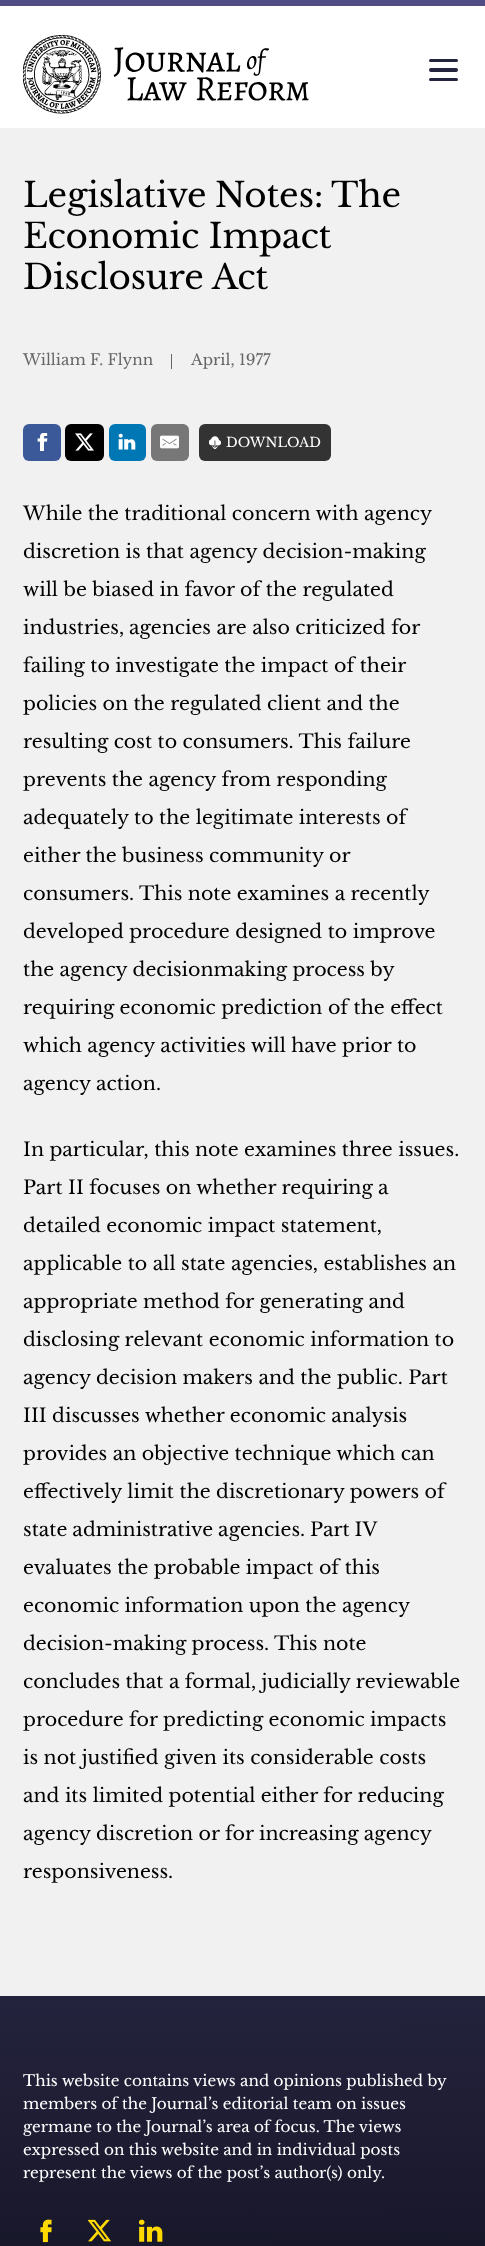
<svg xmlns="http://www.w3.org/2000/svg" width="485" height="2246" viewBox="0 0 485 2246">
  <style>
    .t1 { font: 34.25px Libre Baskerville; letter-spacing: -0.3px; fill: #000; }
    .t2 { font: 15.2px Libre Baskerville; fill: #666; }
    .t3 { font: 13.25px Libre Baskerville; fill: #fff; }
    .t4 { font: 19px Libre Baskerville; fill: #000; }
    .t5 { font: 15.2px Libre Baskerville; fill: #fff; }
  </style>
  <defs>
    <linearGradient id="g1" gradientUnits="userSpaceOnUse" x1="242" y1="1996" x2="243" y2="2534"><stop offset="0" stop-color="#24233d"/><stop offset="1" stop-color="#0a0a15"/></linearGradient>
  </defs>
  <rect width="100%" height="100%" fill="#f1f1f1"/>
  <rect x="0" y="6" width="485" height="122" fill="#fff"/>
  <rect x="0" y="0" width="485" height="6" fill="#504e85"/>
  <image x="23" y="35" width="286" height="79" href="images/1.png"/>
  <rect x="429" y="68" width="29" height="4" rx="2" fill="#24233d"/>
  <rect x="429" y="59" width="29" height="3" rx="1.5" fill="#24233d"/>
  <rect x="429" y="78" width="29" height="3" rx="1.5" fill="#24233d"/>
  <text x="23" y="207" word-spacing="-1" class="t1">Legislative Notes:</text>
  <text x="331" y="207" class="t1">The</text>
  <text x="23" y="248" class="t1">Economic Impact</text>
  <text x="23" y="289" class="t1">Disclosure Act</text>
  <text x="23" y="365" class="t2">William F. Flynn</text>
  <rect x="171" y="354" width="1" height="15" fill="#666"/>
  <text x="191" y="365" class="t2">April, 1977</text>
  <rect x="23" y="424" width="38" height="37" rx="6" fill="#3b5998"/>
  <image x="37" y="433" width="11" height="18" href="images/2.png"/>
  <rect x="65" y="424" width="39" height="37" rx="6" fill="#000"/>
  <image x="75" y="433" width="19" height="18" href="images/3.png"/>
  <rect x="109" y="424" width="37" height="37" rx="6" fill="#0077b5"/>
  <image x="118" y="433" width="18" height="17" href="images/4.png"/>
  <rect x="151" y="424" width="38" height="37" rx="6" fill="#777"/>
  <image x="160" y="435" width="19" height="14" href="images/5.png"/>
  <rect x="199" y="424" width="132" height="37" rx="6" fill="#333"/>
  <image x="209" y="436" width="12" height="13" href="images/6.png"/>
  <text x="226" y="447" class="t3">DOWNLOAD</text>
  <text x="23" y="520" class="t4">While the traditional concern with agency</text>
  <text x="23" y="558" class="t4">discretion is that agency decision-making</text>
  <text x="23" y="596" class="t4">will be biased in favor of the regulated</text>
  <text x="23" y="634" class="t4">industries,</text>
  <text x="129" y="634" class="t4">agencies are also criticized for</text>
  <text x="23" y="672" class="t4">failing to investigate the impact of their</text>
  <text x="23" y="710" class="t4">policies on the regulated client and the</text>
  <text x="23" y="748" class="t4">resulting cost to consumers. This failure</text>
  <text x="23" y="786" class="t4">prevents the agency from responding</text>
  <text x="23" y="824" class="t4">adequately to the legitimate interests of</text>
  <text x="23" y="862" class="t4">either the business community or</text>
  <text x="23" y="900" class="t4">consumers. This note examines a recently</text>
  <text x="23" y="938" class="t4">developed procedure designed to improve</text>
  <text x="23" y="976" class="t4">the agency decisionmaking process by</text>
  <text x="23" y="1014" class="t4">requiring economic prediction of the effect</text>
  <text x="23" y="1052" class="t4">which agency activities will have prior to</text>
  <text x="23" y="1090" class="t4">agency action.</text>
  <text x="23" y="1156" class="t4">In particular, this note examines three issues.</text>
  <text x="23" y="1194" class="t4">Part II focuses on whether requiring a</text>
  <text x="23" y="1232" class="t4">detailed economic impact statement,</text>
  <text x="23" y="1270" class="t4">applicable to all state agencies, establishes an</text>
  <text x="23" y="1308" class="t4">appropriate method for generating and</text>
  <text x="23" y="1346" class="t4">disclosing relevant economic information to</text>
  <text x="23" y="1384" class="t4">agency decision makers and the public. Part</text>
  <text x="23" y="1422" class="t4">III discusses whether economic analysis</text>
  <text x="23" y="1460" class="t4">provides an objective technique which can</text>
  <text x="23" y="1498" class="t4">effectively limit the discretionary powers of</text>
  <text x="23" y="1536" word-spacing="-0.5" class="t4">state administrative agencies. Part IV</text>
  <text x="23" y="1574" class="t4">evaluates the probable impact of this</text>
  <text x="23" y="1612" class="t4">economic information upon the agency</text>
  <text x="23" y="1650" class="t4">decision-making process. This note</text>
  <text x="23" y="1688" class="t4">concludes that a formal, judicially reviewable</text>
  <text x="23" y="1726" class="t4">procedure for predicting economic impacts</text>
  <text x="23" y="1764" class="t4">is not justified given its considerable costs</text>
  <text x="23" y="1802" class="t4">and its limited potential either for reducing</text>
  <text x="23" y="1840" class="t4">agency discretion or for increasing agency</text>
  <text x="23" y="1878" class="t4">responsiveness.</text>
  <rect x="0" y="1996" width="485" height="250" fill="url(#g1)"/>
  <text x="23" y="2086" class="t5">This website contains views and opinions published by</text>
  <text x="23" y="2109" class="t5">members of the Journal’s editorial team on issues</text>
  <text x="23" y="2132" class="t5">germane to the Journal’s area of focus. The views</text>
  <text x="23" y="2155" class="t5">expressed on this website and in individual posts</text>
  <text x="23" y="2178" class="t5">represent the views of the post’s author(s) only.</text>
  <image x="40" y="2219" width="12" height="24" href="images/7.png"/>
  <image x="88" y="2219" width="23" height="23" href="images/8.png"/>
  <image x="139" y="2219" width="24" height="23" href="images/9.png"/>
</svg>
